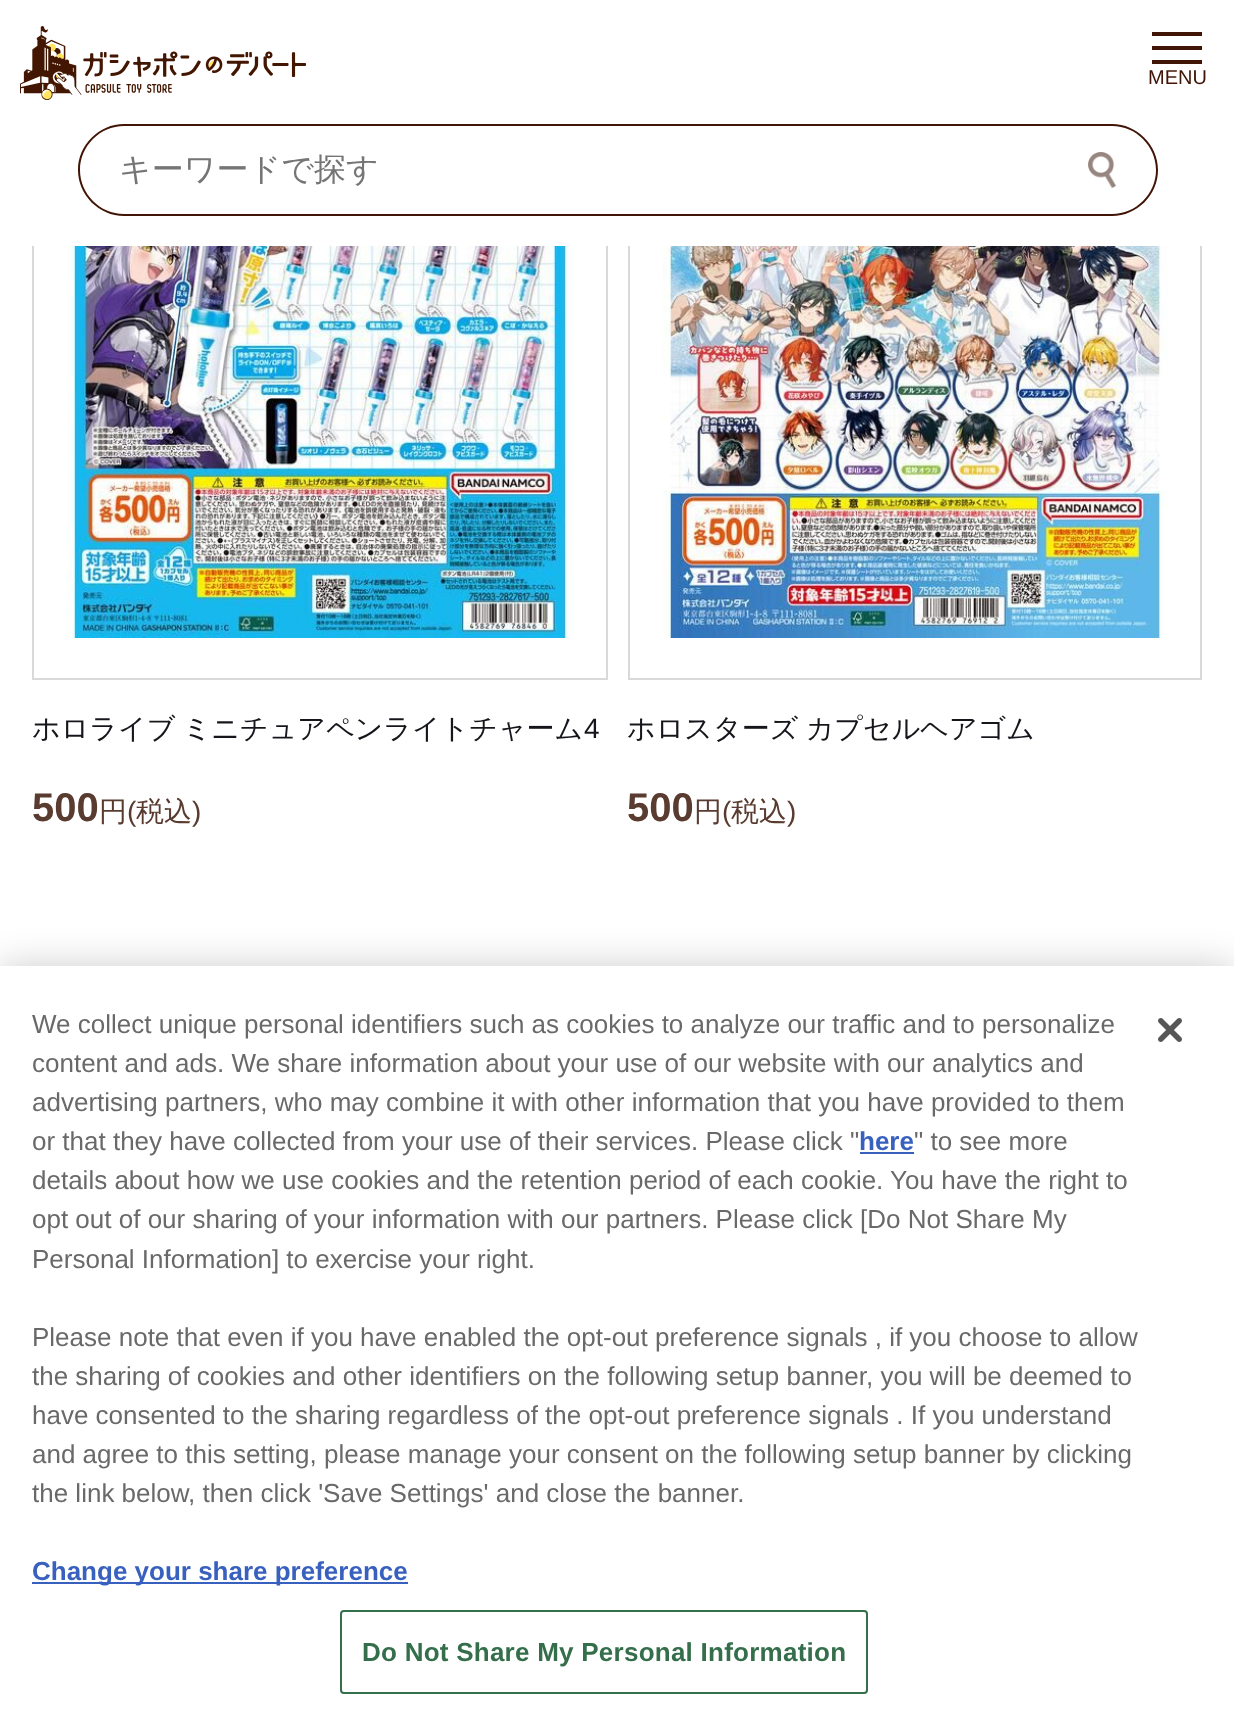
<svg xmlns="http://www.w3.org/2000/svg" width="1234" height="1726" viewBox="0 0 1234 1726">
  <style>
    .t1 { font: 20px Liberation Sans; fill: #411505; }
    .t2 { font: 500 32px WenQuanYi Zen Hei; fill: #757575; }
    .t3 { font: 500 28px WenQuanYi Zen Hei; fill: #15161b; }
    .t4 { font: 28px Liberation Sans; fill: #15161b; }
    .t5 { font: bold 40px Liberation Sans; fill: #593b30; }
    .t6 { font: 500 28px WenQuanYi Zen Hei; fill: #593b30; }
    .t7 { font: 28px Liberation Sans; fill: #593b30; }
    .t8 { font: 26px Liberation Sans; fill: #696969; }
    .t9 { font: bold 26px Liberation Sans; fill: #3860be; }
    .t10 { font: bold 26px Liberation Sans; letter-spacing: 0.25px; fill: #346e4a; }
  </style>
  <rect width="100%" height="100%" fill="#fff"/>
  <rect x="33" y="25" width="574" height="654" fill="none" stroke="#d9d9d9" stroke-width="2"/>
  <rect x="629" y="25" width="572" height="654" fill="none" stroke="#d9d9d9" stroke-width="2"/>
  <rect x="32" y="24" width="1170" height="222" fill="#fff"/>
  <image x="20" y="26" width="286" height="74" href="images/1.png"/>
  <rect x="1152" y="32" width="50" height="4" fill="#411505"/>
  <rect x="1152" y="46" width="50" height="4" fill="#411505"/>
  <rect x="1152" y="60" width="50" height="4" fill="#411505"/>
  <text x="1148" y="84" class="t1">MENU</text>
  <path d="M124 124H1048V216H124C99 216 78 195 78 170C78 145 99 124 124 124ZM124 126H1048V214H124C100 214 80 194 80 170C80 146 100 126 124 126Z" fill="#411505" fill-rule="evenodd"/>
  <text x="119" y="180" class="t2">キーワードで探す</text>
  <image x="1088" y="152" width="28" height="36" href="images/2.png"/>
  <path d="M1048 124H1112C1137 124 1158 145 1158 170C1158 195 1137 216 1112 216H1048ZM1048 126H1112C1136 126 1156 146 1156 170C1156 194 1136 214 1112 214H1048Z" fill="#411505" fill-rule="evenodd"/>
  <image x="66" y="246" width="507" height="392" href="images/3.png"/>
  <text x="32" y="738" word-spacing="-1" class="t3">ホロライブ ミニチュアペンライトチャーム</text>
  <text x="584" y="738" class="t4">4</text>
  <text x="32" y="821" class="t5">500</text>
  <text x="99" y="821" class="t6">円</text>
  <text x="127" y="821" class="t7">(</text>
  <text x="136" y="821" class="t6">税込</text>
  <text x="192" y="821" class="t7">)</text>
  <image x="662" y="246" width="506" height="392" href="images/4.png"/>
  <text x="627" y="738" word-spacing="-1" class="t3">ホロスターズ カプセルヘアゴム</text>
  <text x="627" y="821" class="t5">500</text>
  <text x="694" y="821" class="t6">円</text>
  <text x="722" y="821" class="t7">(</text>
  <text x="731" y="821" class="t6">税込</text>
  <text x="787" y="821" class="t7">)</text>
  <rect x="0" y="966" width="1234" height="760" fill="#00000033" filter="blur(18px)"/>
  <rect x="0" y="966" width="1234" height="760" fill="#fff"/>
  <text x="32" y="1033" class="t8">We collect unique personal identifiers such as cookies to analyze our traffic and to personalize</text>
  <text x="32" y="1072" class="t8">content and ads. We share information about your use of our website with our analytics and</text>
  <text x="32" y="1111" class="t8">advertising partners, who may combine it with other information that you have provided to them</text>
  <text x="32" y="1150" class="t8">or that they have collected from your use of their services. Please click "</text>
  <text x="859" y="1150" class="t9">here</text>
  <rect x="860" y="1152" width="54" height="2" fill="#3860be"/>
  <text x="914" y="1150" class="t8">" to see more</text>
  <text x="32" y="1189" class="t8">details about how we use cookies and the retention period of each cookie. You have the right to</text>
  <text x="32" y="1228" class="t8">opt out of our sharing of your information with our partners. Please click [Do Not Share My</text>
  <text x="32" y="1268" class="t8">Personal Information] to exercise your right.</text>
  <text x="32" y="1346" class="t8">Please note that even if you have enabled the opt-out preference signals , if you choose to allow</text>
  <text x="32" y="1385" class="t8">the sharing of cookies and other identifiers on the following setup banner, you will be deemed to</text>
  <text x="32" y="1424" class="t8">have consented to the sharing regardless of the opt-out preference signals . If you understand</text>
  <text x="32" y="1463" class="t8">and agree to this setting, please manage your consent on the following setup banner by clicking</text>
  <text x="32" y="1502" class="t8">the link below, then click 'Save Settings' and close the banner.</text>
  <rect x="32" y="1582" width="376" height="2" fill="#3860be"/>
  <text x="32" y="1580" class="t9">Change your share preference</text>
  <rect x="341" y="1611" width="526" height="82" rx="3" fill="none" stroke="#346e4a" stroke-width="2"/>
  <text x="362" y="1661" class="t10">Do Not Share My Personal Information</text>
  <image x="1158" y="1018" width="24" height="24" href="images/5.png"/>
</svg>
